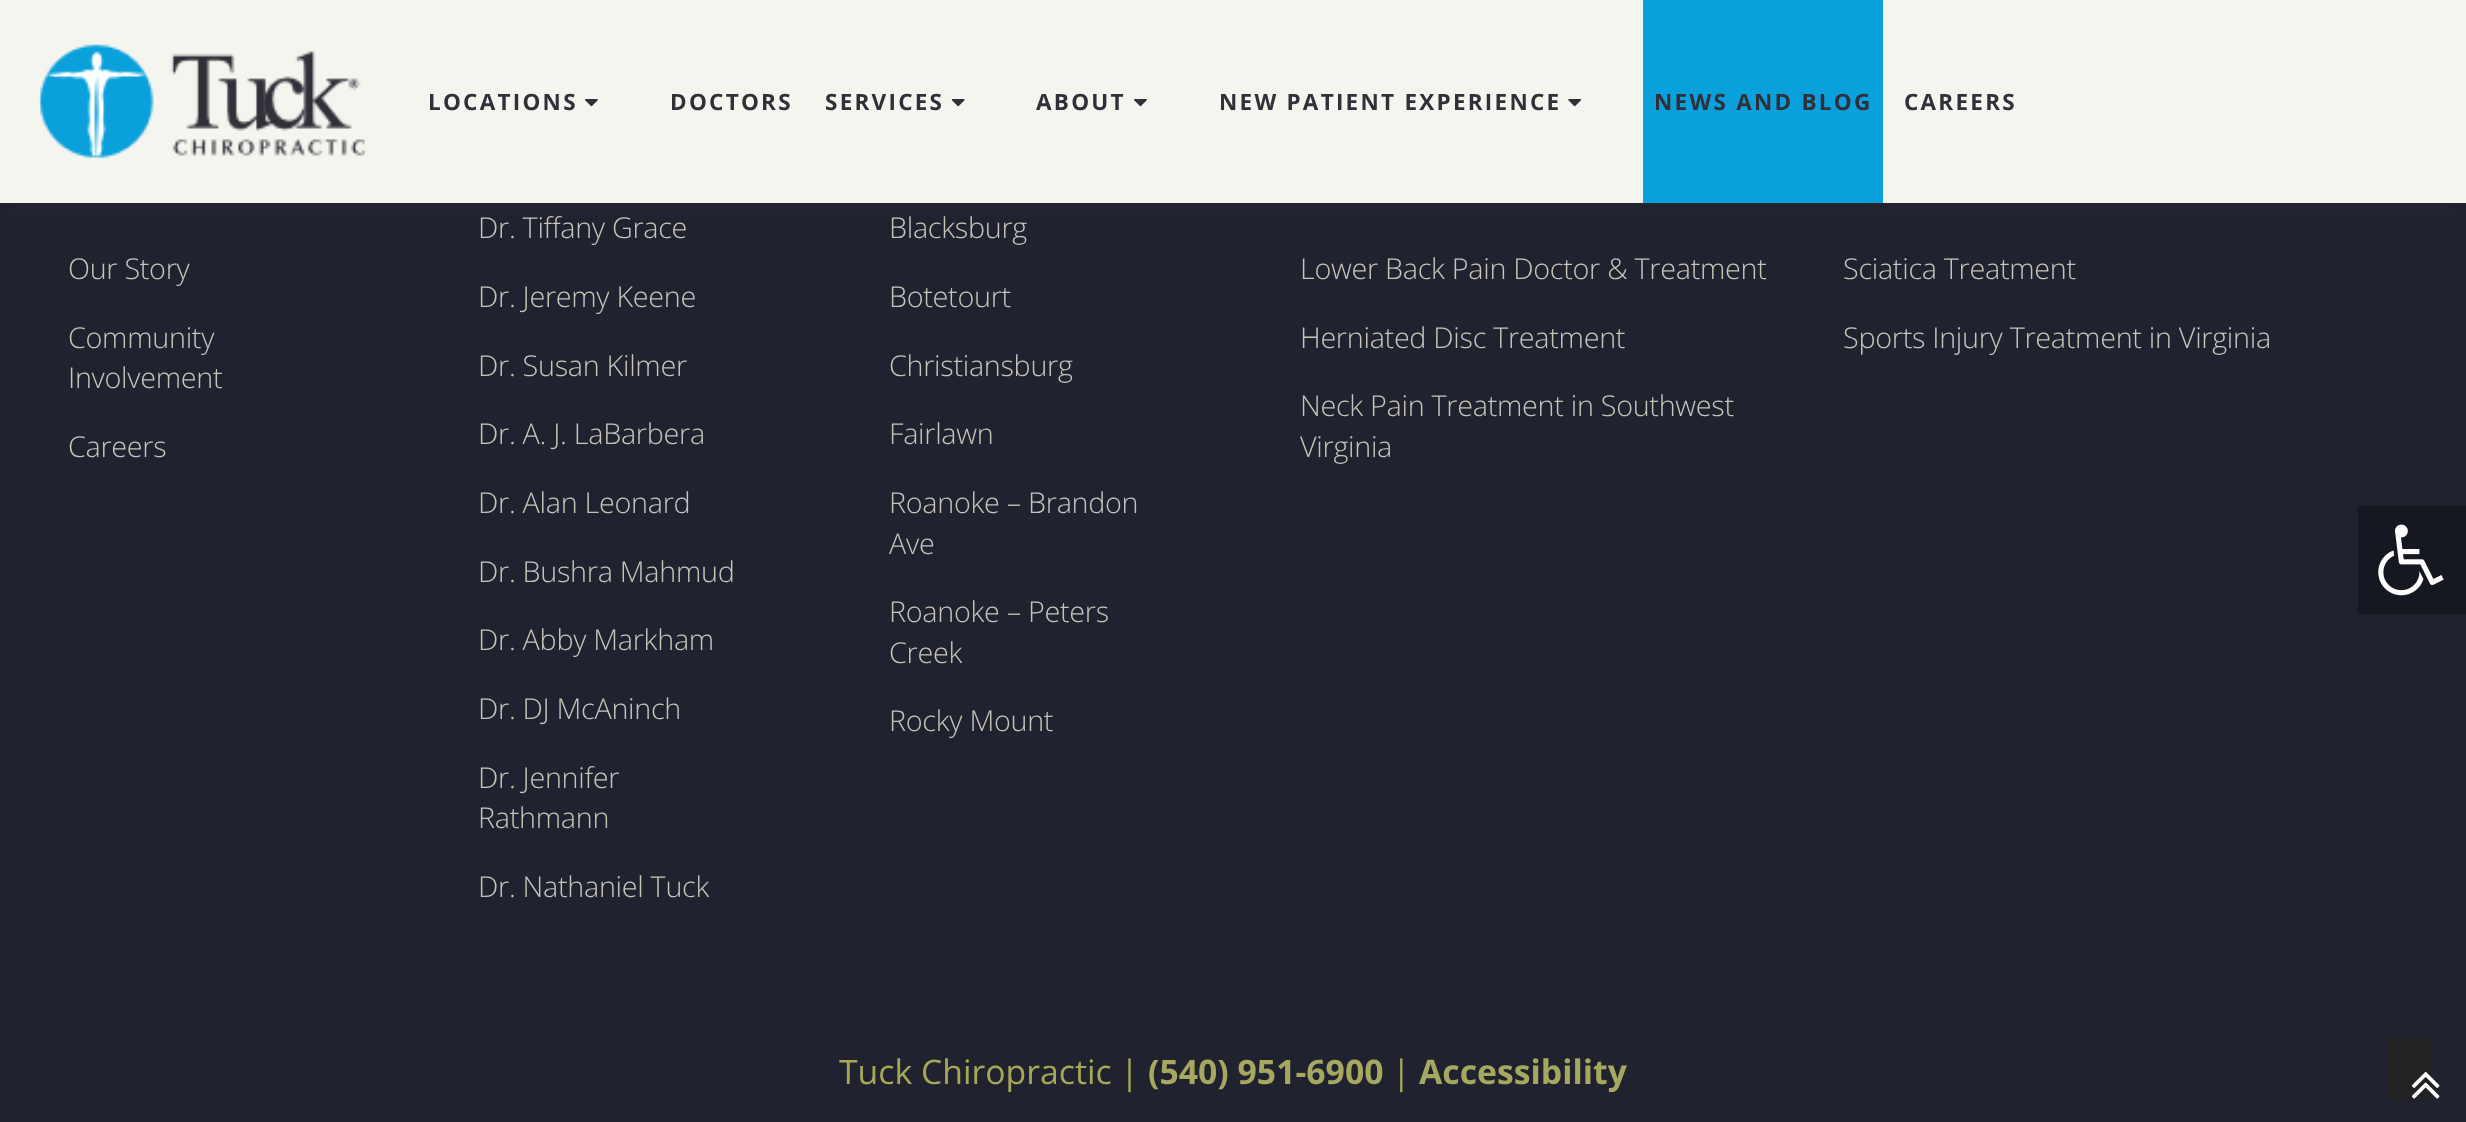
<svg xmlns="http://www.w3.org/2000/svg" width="2466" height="1122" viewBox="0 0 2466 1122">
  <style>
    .t1 { font: bold 22.5px Open Sans; letter-spacing: 2.25px; fill: #312f38; }
    .t2 { font: 300 28.75px Open Sans; letter-spacing: -0.3px; fill: #c5c5ba; }
    .t3 { font: 33.75px Open Sans; fill: #a7a856; }
    .t4 { font: bold 33.75px Open Sans; fill: #a7a85f; }
  </style>
  <rect width="100%" height="100%" fill="#20222f"/>
  <rect x="0" y="11" width="2466" height="203" fill="#312f3833" filter="blur(11px)"/>
  <rect x="0" y="0" width="2466" height="203" fill="#f5f5f0"/>
  <image x="38" y="44" width="328" height="115" href="images/1.png"/>
  <text x="428" y="110" class="t1">LOCATIONS</text>
  <image x="585" y="99" width="13" height="8" href="images/2.png"/>
  <text x="670" y="110" class="t1">DOCTORS</text>
  <text x="825" y="110" class="t1">SERVICES</text>
  <image x="951" y="99" width="14" height="8" href="images/3.png"/>
  <text x="1036" y="110" class="t1">ABOUT</text>
  <image x="1134" y="99" width="13" height="8" href="images/2.png"/>
  <text x="1219" y="110" class="t1">NEW PATIENT EXPERIENCE</text>
  <image x="1568" y="99" width="14" height="8" href="images/4.png"/>
  <rect x="1643" y="0" width="240" height="203" fill="#0aa0db"/>
  <text x="1654" y="110" class="t1">NEWS AND BLOG</text>
  <text x="1904" y="110" class="t1">CAREERS</text>
  <text x="68" y="279" class="t2">Our Story</text>
  <text x="68" y="348" class="t2">Community</text>
  <text x="68" y="388" class="t2">Involvement</text>
  <text x="68" y="457" class="t2">Careers</text>
  <text x="478" y="238" class="t2">Dr. Tiffany Grace</text>
  <text x="478" y="307" class="t2">Dr. Jeremy Keene</text>
  <text x="478" y="376" class="t2">Dr. Susan Kilmer</text>
  <text x="478" y="444" class="t2">Dr. A. J. LaBarbera</text>
  <text x="478" y="513" class="t2">Dr. Alan Leonard</text>
  <text x="478" y="582" class="t2">Dr. Bushra Mahmud</text>
  <text x="478" y="650" class="t2">Dr. Abby Markham</text>
  <text x="478" y="719" class="t2">Dr. DJ McAninch</text>
  <text x="478" y="788" class="t2">Dr. Jennifer</text>
  <text x="478" y="828" class="t2">Rathmann</text>
  <text x="478" y="897" class="t2">Dr. Nathaniel Tuck</text>
  <text x="889" y="238" class="t2">Blacksburg</text>
  <text x="889" y="307" class="t2">Botetourt</text>
  <text x="889" y="376" class="t2">Christiansburg</text>
  <text x="889" y="444" class="t2">Fairlawn</text>
  <text x="889" y="513" class="t2">Roanoke – Brandon</text>
  <text x="889" y="554" class="t2">Ave</text>
  <text x="889" y="622" class="t2">Roanoke – Peters</text>
  <text x="889" y="663" class="t2">Creek</text>
  <text x="889" y="731" class="t2">Rocky Mount</text>
  <text x="1300" y="279" class="t2">Lower Back Pain Doctor &amp; Treatment</text>
  <text x="1843" y="279" class="t2">Sciatica Treatment</text>
  <text x="1300" y="348" class="t2">Herniated Disc Treatment</text>
  <text x="1843" y="348" class="t2">Sports Injury Treatment in Virginia</text>
  <text x="1300" y="416" class="t2">Neck Pain Treatment in Southwest</text>
  <text x="1300" y="457" class="t2">Virginia</text>
  <text x="839" y="1084" class="t3">Tuck Chiropractic |</text>
  <text x="1148" y="1084" class="t4">(540) 951-6900</text>
  <text x="1392" y="1084" class="t3">|</text>
  <text x="1419" y="1084" class="t4">Accessibility</text>
  <rect x="2358" y="506" width="108" height="108" fill="#161821"/>
  <image x="2378" y="524" width="66" height="72" href="images/5.png"/>
  <rect x="2387" y="1037" width="45" height="63" rx="7" fill="#222"/>
  <image x="2411" y="1072" width="29" height="27" href="images/6.png"/>
</svg>
